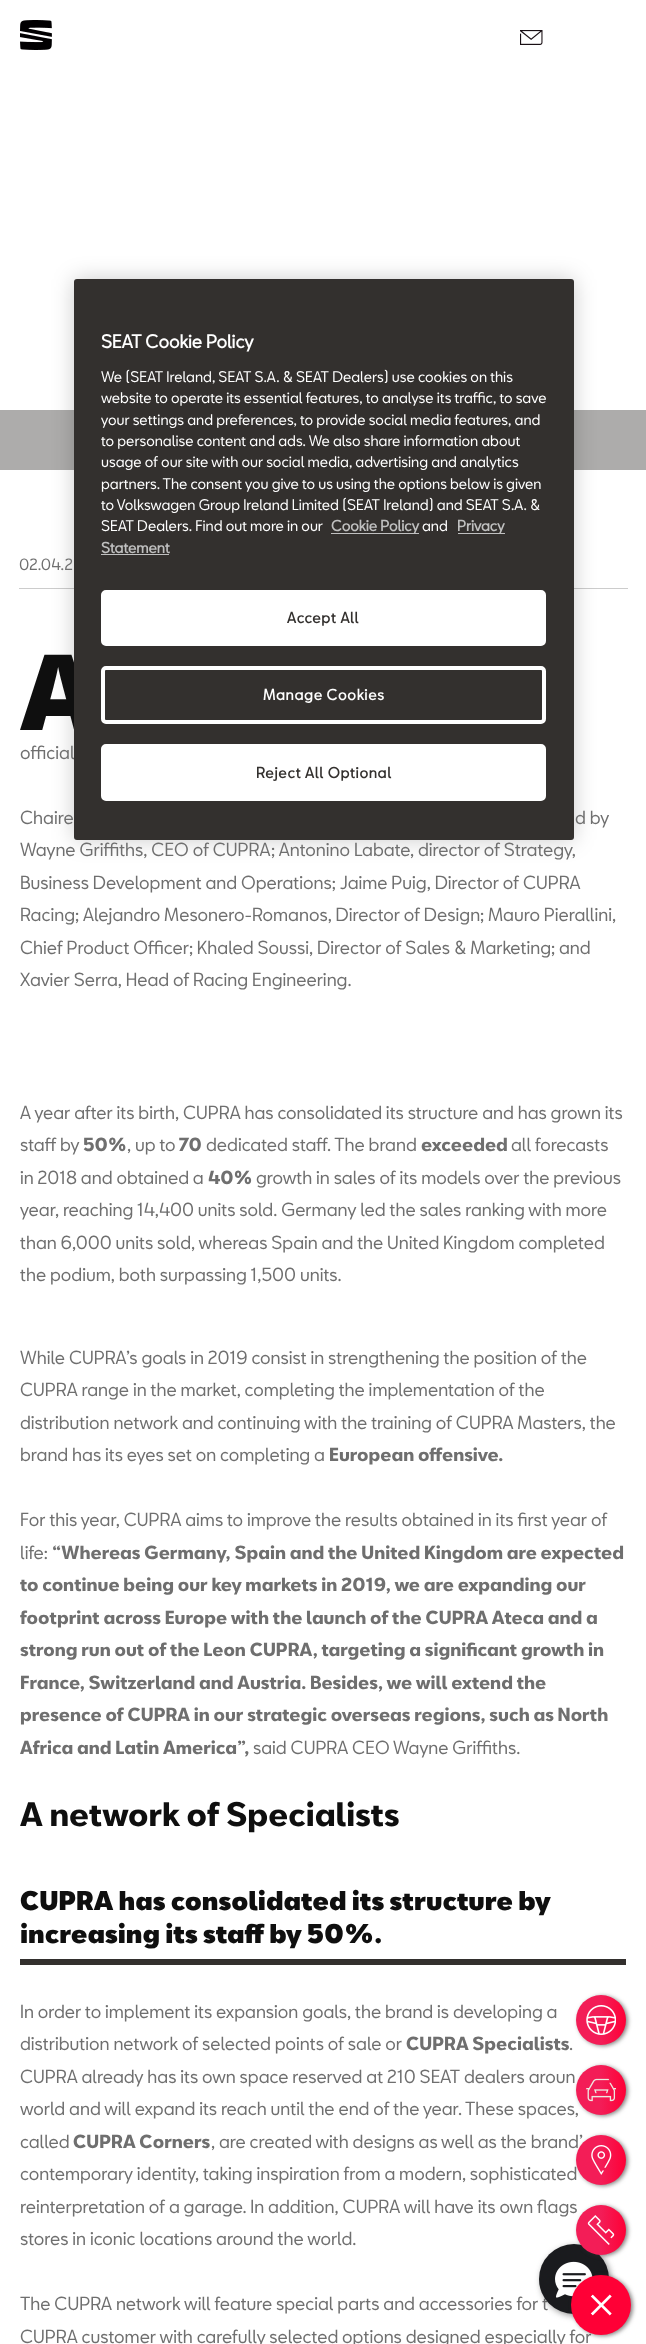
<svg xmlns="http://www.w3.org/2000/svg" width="646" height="2344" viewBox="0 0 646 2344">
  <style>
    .t1 { font: 900 105px Noto Sans; fill: #0f0f0f; }
    .t2 { font: 17.5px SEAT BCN; fill: #6f6f6f; }
    .t3 { font: bold 17.5px 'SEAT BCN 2'; fill: #fff; }
    .t4 { font: 14.25px SEAT BCN; fill: #fff; }
    .t5 { font: bold 14.25px 'SEAT BCN 2'; fill: #c0c0c0; }
    .t6 { font: bold 14.25px 'SEAT BCN 2'; letter-spacing: 0.75px; fill: #33302e; }
    .t7 { font: bold 14.25px 'SEAT BCN 2'; letter-spacing: 0.75px; fill: #fff; }
    .t8 { font: 15px SEAT BCN; fill: #6f6f6f; }
    .t9 { font: bold 17.5px SEAT BCN; fill: #6f6f6f; }
    .t10 { font: bold 31.25px SEAT BCN; fill: #0f0f0f; }
    .t11 { font: 900 25px SEAT BCN; fill: #0f0f0f; }
  </style>
  <defs>
    <linearGradient id="g1" gradientUnits="userSpaceOnUse" x1="576" y1="2020" x2="626" y2="2020"><stop offset="0.5" stop-color="#f31d57"/><stop offset="1" stop-color="#ff0036"/></linearGradient>
    <linearGradient id="g2" gradientUnits="userSpaceOnUse" x1="576" y1="2090" x2="626" y2="2090"><stop offset="0.5" stop-color="#f31d57"/><stop offset="1" stop-color="#ff0036"/></linearGradient>
    <linearGradient id="g3" gradientUnits="userSpaceOnUse" x1="576" y1="2160" x2="626" y2="2160"><stop offset="0.5" stop-color="#f31d57"/><stop offset="1" stop-color="#ff0036"/></linearGradient>
    <linearGradient id="g4" gradientUnits="userSpaceOnUse" x1="576" y1="2230" x2="626" y2="2230"><stop offset="0.5" stop-color="#f31d57"/><stop offset="1" stop-color="#ff0036"/></linearGradient>
  </defs>
  <rect width="100%" height="100%" fill="#fff"/>
  <image x="20" y="20" width="32" height="30" href="images/1.png"/>
  <image x="520" y="30" width="23" height="15" href="images/2.png"/>
  <rect x="0" y="410" width="646" height="60" fill="#adacab"/>
  <rect x="19" y="588" width="609" height="1" fill="#ccc"/>
  <rect x="74" y="279" width="500" height="561" rx="3" fill="#00000033" filter="blur(11px)"/>
  <text x="20" y="730" class="t1">A</text>
  <text x="20" y="759" class="t2">official</text>
  <rect x="74" y="279" width="500" height="561" rx="3" fill="#33302e"/>
  <text x="101" y="348" class="t3">SEAT Cookie Policy</text>
  <text x="101" y="382" class="t4">We (SEAT Ireland, SEAT S.A. &amp; SEAT Dealers) use cookies on this</text>
  <text x="101" y="403" class="t4">website to operate its essential features, to analyse its traffic, to save</text>
  <text x="101" y="425" class="t4">your settings and preferences, to provide social media features, and</text>
  <text x="101" y="446" class="t4">to personalise content and ads. We also share information about</text>
  <text x="101" y="467" class="t4">usage of our site with our social media, advertising and analytics</text>
  <text x="101" y="489" class="t4">partners. The consent you give to us using the options below is given</text>
  <text x="101" y="510" class="t4">to Volkswagen Group Ireland Limited (SEAT Ireland) and SEAT S.A. &amp;</text>
  <text x="101" y="531" class="t4">SEAT Dealers. Find out more in our</text>
  <rect x="331" y="533" width="88" height="1" fill="#c0c0c0"/>
  <text x="331" y="531" class="t5">Cookie Policy</text>
  <text x="422" y="531" class="t4">and</text>
  <rect x="458" y="533" width="47" height="1" fill="#c0c0c0"/>
  <text x="457" y="531" class="t5">Privacy</text>
  <text x="101" y="553" class="t5">Statement</text>
  <rect x="101" y="554" width="68" height="1" fill="#c0c0c0"/>
  <rect x="103" y="592" width="441" height="52" rx="3" fill="#fff" stroke="#fff" stroke-width="4"/>
  <text x="287" y="623" class="t6">Accept All</text>
  <rect x="103" y="668" width="441" height="54" rx="3" fill="none" stroke="#fff" stroke-width="4"/>
  <text x="263" y="700" class="t7">Manage Cookies</text>
  <rect x="103" y="746" width="441" height="53" rx="3" fill="#fff" stroke="#fff" stroke-width="4"/>
  <text x="256" y="778" class="t6">Reject All Optional</text>
  <text x="19" y="570" class="t8">02.04.2</text>
  <text x="20" y="824" class="t2">Chaire</text>
  <text x="575" y="824" class="t2">d by</text>
  <text x="20" y="856" class="t2">Wayne Griffiths, CEO of CUPRA; Antonino Labate, director of Strategy,</text>
  <text x="20" y="889" class="t2">Business Development and Operations; Jaime Puig, Director of CUPRA</text>
  <text x="20" y="921" class="t2">Racing; Alejandro Mesonero-Romanos, Director of Design; Mauro Pierallini,</text>
  <text x="20" y="954" class="t2">Chief Product Officer; Khaled Soussi, Director of Sales &amp; Marketing; and</text>
  <text x="20" y="986" class="t2">Xavier Serra, Head of Racing Engineering.</text>
  <text x="20" y="1119" class="t2">A year after its birth, CUPRA has consolidated its structure and has grown its</text>
  <text x="20" y="1151" class="t2">staff by</text>
  <text x="83" y="1151" class="t9">50%</text>
  <text x="127" y="1151" class="t2">, up to</text>
  <text x="179" y="1151" class="t9">70</text>
  <text x="206" y="1151" class="t2">dedicated staff. The brand</text>
  <text x="421" y="1151" class="t9">exceeded</text>
  <text x="511" y="1151" class="t2">all forecasts</text>
  <text x="20" y="1184" class="t2">in 2018 and obtained a</text>
  <text x="208" y="1184" class="t9">40%</text>
  <text x="256" y="1184" class="t2">growth in sales of its models over the previous</text>
  <text x="20" y="1216" class="t2">year, reaching 14,400 units sold. Germany led the sales ranking with more</text>
  <text x="20" y="1249" class="t2">than 6,000 units sold, whereas Spain and the United Kingdom completed</text>
  <text x="20" y="1281" class="t2">the podium, both surpassing 1,500 units.</text>
  <text x="20" y="1364" class="t2">While CUPRA’s goals in 2019 consist in strengthening the position of the</text>
  <text x="20" y="1396" class="t2">CUPRA range in the market, completing the implementation of the</text>
  <text x="20" y="1429" class="t2">distribution network and continuing with the training of CUPRA Masters, the</text>
  <text x="20" y="1461" class="t2">brand has its eyes set on completing a</text>
  <text x="329" y="1461" class="t9">European offensive.</text>
  <text x="20" y="1526" class="t2">For this year, CUPRA aims to improve the results obtained in its first year of</text>
  <text x="20" y="1559" class="t2">life:</text>
  <text x="52" y="1559" class="t9">“Whereas Germany, Spain and the United Kingdom are expected</text>
  <text x="20" y="1591" class="t9">to continue being our key markets in 2019, we are expanding our</text>
  <text x="20" y="1624" class="t9">footprint across Europe with the launch of the CUPRA Ateca and a</text>
  <text x="20" y="1656" class="t9">strong run out of the Leon CUPRA, targeting a significant growth in</text>
  <text x="20" y="1689" class="t9">France, Switzerland and Austria. Besides, we will extend the</text>
  <text x="20" y="1721" class="t9">presence of CUPRA in our strategic overseas regions, such as North</text>
  <text x="20" y="1754" class="t9">Africa and Latin America”,</text>
  <text x="253" y="1754" class="t2">said CUPRA CEO Wayne Griffiths.</text>
  <text x="20" y="1826" class="t10">A network of Specialists</text>
  <rect x="20" y="1959" width="606" height="6" fill="#33302e"/>
  <text x="20" y="1910" class="t11">CUPRA has consolidated its structure by</text>
  <text x="20" y="1943" class="t11">increasing its staff by 50%.</text>
  <text x="20" y="2018" class="t2">In order to implement its expansion goals, the brand is developing a</text>
  <text x="20" y="2050" class="t2">distribution network of selected points of sale or</text>
  <text x="406" y="2050" class="t9">CUPRA Specialists</text>
  <text x="569" y="2050" class="t2">.</text>
  <text x="20" y="2083" class="t2">CUPRA already has its own space reserved at 210 SEAT dealers aroun</text>
  <text x="20" y="2115" class="t2">world and will expand its reach until the end of the year. These spaces,</text>
  <text x="20" y="2148" class="t2">called</text>
  <text x="73" y="2148" class="t9">CUPRA Corners</text>
  <text x="211" y="2148" class="t2">, are created with designs as well as the brand’</text>
  <text x="20" y="2180" class="t2">contemporary identity, taking inspiration from a modern, sophisticated</text>
  <text x="20" y="2213" class="t2">reinterpretation of a garage. In addition, CUPRA will have its own flags</text>
  <text x="20" y="2245" class="t2">stores in iconic locations around the world.</text>
  <text x="20" y="2310" class="t2">The CUPRA network will feature special parts and accessories for t</text>
  <text x="20" y="2343" class="t2">CUPRA customer with carefully selected options designed especially for</text>
  <rect x="578" y="1996" width="50" height="50" rx="25" fill="#33302e99" filter="blur(2px)"/>
  <circle cx="601" cy="2020" r="25" fill="url(#g1)"/>
  <image x="586" y="2005" width="30" height="30" href="images/3.png"/>
  <rect x="578" y="2066" width="50" height="50" rx="25" fill="#33302e99" filter="blur(2px)"/>
  <circle cx="601" cy="2090" r="25" fill="url(#g2)"/>
  <image x="586" y="2078" width="30" height="24" href="images/4.png"/>
  <rect x="578" y="2136" width="50" height="50" rx="25" fill="#33302e99" filter="blur(2px)"/>
  <circle cx="601" cy="2160" r="25" fill="url(#g3)"/>
  <image x="591" y="2145" width="21" height="30" href="images/5.png"/>
  <rect x="541" y="2246" width="70" height="70" rx="35" fill="#2d2d2d80" filter="blur(3px)"/>
  <circle cx="574" cy="2279" r="35" fill="#1a1b1e"/>
  <image x="555" y="2261" width="38" height="37" href="images/8.png"/>
  <rect x="578" y="2206" width="50" height="50" rx="25" fill="#33302e99" filter="blur(2px)"/>
  <circle cx="601" cy="2230" r="25" fill="url(#g4)"/>
  <image x="587" y="2215" width="28" height="30" href="images/6.png"/>
  <rect x="573" y="2276" width="60" height="60" rx="30" fill="#33302e99" filter="blur(2px)"/>
  <circle cx="601" cy="2305" r="30" fill="#ff0036"/>
  <image x="590" y="2294" width="22" height="22" href="images/7.png"/>
</svg>
